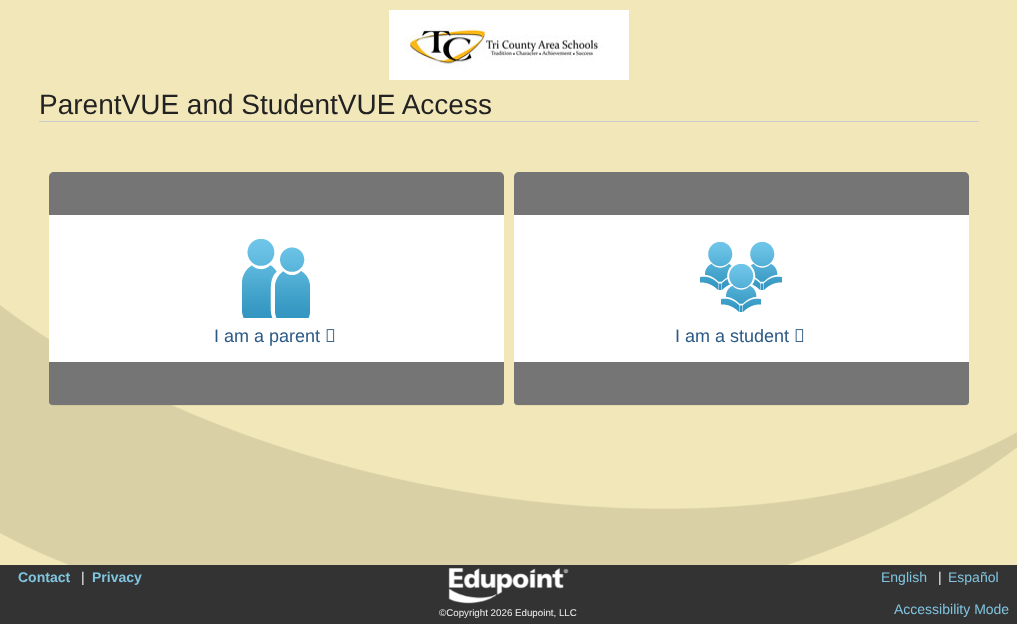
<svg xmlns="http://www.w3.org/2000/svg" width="1017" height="624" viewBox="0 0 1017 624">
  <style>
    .t1 { font: 28px Liberation Sans; fill: #222; }
    .t2 { font: 18px Liberation Sans; fill: #2c5a85; }
    .t3 { font: bold 14px Liberation Sans; fill: #80c5e0; }
    .t4 { font: 14px Liberation Sans; fill: #eee; }
    .t5 { font: 14px Liberation Sans; fill: #80c5e0; }
    .t6 { font: 9.75px Liberation Sans; fill: #eee; }
  </style>
  <rect width="100%" height="100%" fill="#f2e7b8"/>
  <image x="0" y="305" width="1017" height="260" href="images/1.png"/>
  <image x="389" y="10" width="240" height="70" href="images/2.png"/>
  <rect x="39" y="121" width="940" height="1" fill="#ccc"/>
  <text x="39" y="114" class="t1">ParentVUE and StudentVUE Access</text>
  <rect x="49" y="173" width="455" height="233" rx="5" fill="#0000000d" filter="blur(0.5px)"/>
  <rect x="49" y="172" width="455" height="233" rx="5" fill="#fff"/>
  <path d="M54 172H499C502 172 504 174 504 177V215H49V177C49 174 51 172 54 172Z" fill="#757575"/>
  <image x="242" y="239" width="68" height="79" href="images/3.png"/>
  <text x="214" y="342" class="t2">I am a parent</text>
  <image x="326" y="329" width="9" height="13" href="images/4.png"/>
  <path d="M49 362H504V402C504 403.5 502.5 405 501 405H52C50.5 405 49 403.5 49 402Z" fill="#757575"/>
  <rect x="514" y="173" width="455" height="233" rx="5" fill="#0000000d" filter="blur(0.5px)"/>
  <rect x="514" y="172" width="455" height="233" rx="5" fill="#fff"/>
  <path d="M519 172H964C967 172 969 174 969 177V215H514V177C514 174 516 172 519 172Z" fill="#757575"/>
  <image x="700" y="242" width="82" height="70" href="images/5.png"/>
  <text x="675" y="342" class="t2">I am a student</text>
  <image x="795" y="329" width="9" height="13" href="images/4.png"/>
  <path d="M514 362H969V402C969 403.5 967.5 405 966 405H517C515.5 405 514 403.5 514 402Z" fill="#757575"/>
  <rect x="0" y="565" width="1017" height="59" fill="#333"/>
  <text x="18" y="582" class="t3">Contact</text>
  <text x="81" y="582" class="t4">|</text>
  <text x="92" y="582" class="t3">Privacy</text>
  <text x="881" y="582" class="t5">English</text>
  <text x="938" y="582" class="t4">|</text>
  <text x="948" y="582" class="t5">Español</text>
  <image x="448" y="568" width="121" height="36" href="images/6.png"/>
  <text x="439" y="616" class="t6">©Copyright 2026 Edupoint, LLC</text>
  <text x="894" y="614" class="t5">Accessibility Mode</text>
</svg>
